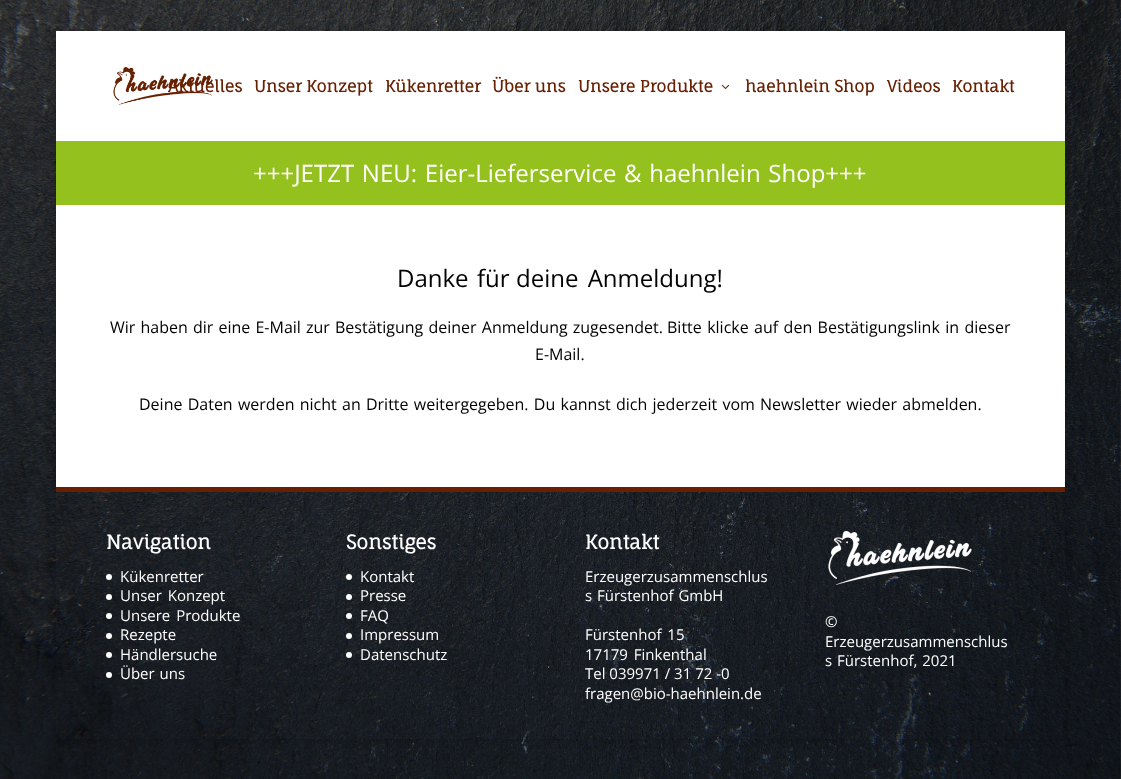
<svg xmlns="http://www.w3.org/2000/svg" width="1121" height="779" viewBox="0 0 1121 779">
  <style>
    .t1 { font: bold 16px 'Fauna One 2'; fill: #672002; }
    .t2 { font: 24px Open Sans; fill: #fff; }
    .t3 { font: 24px Open Sans; fill: #000; }
    .t4 { font: 16px Open Sans; fill: #000; }
    .t5 { font: bold 19px Fauna One; fill: #fff; }
    .t6 { font: 15px Open Sans; fill: #fff; }
  </style>
  <defs>
    <clipPath id="clip1"><path d="M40 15H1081V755H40ZM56 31H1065V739H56Z" clip-rule="evenodd"/></clipPath>
  </defs>
  <rect width="100%" height="100%" fill="#fff"/>
  <image x="0" y="0" width="1121" height="779" href="images/1.png"/>
  <g clip-path="url(#clip1)">
    <rect x="56" y="31" width="1009" height="708" fill="#00000033" filter="blur(5px)"/>
  </g>
  <rect x="56" y="31" width="1009" height="110" fill="#fff"/>
  <image x="113" y="67" width="100" height="38" href="images/2.png"/>
  <text x="168" y="92" class="t1">Aktuelles</text>
  <text x="254" y="92" class="t1">Unser Konzept</text>
  <text x="385" y="92" class="t1">Kükenretter</text>
  <text x="492" y="92" class="t1">Über uns</text>
  <text x="578" y="92" class="t1">Unsere Produkte</text>
  <image x="721" y="84" width="9" height="5" href="images/3.png"/>
  <text x="745" y="92" class="t1">haehnlein Shop</text>
  <text x="887" y="92" class="t1">Videos</text>
  <text x="952" y="92" class="t1">Kontakt</text>
  <rect x="56" y="141" width="1009" height="64" fill="#95c11f"/>
  <text x="253" y="182" word-spacing="1.5" class="t2">+++JETZT NEU: Eier-Lieferservice &amp; haehnlein Shop+++</text>
  <rect x="56" y="205" width="1009" height="282" fill="#fff"/>
  <text x="397" y="287" class="t3">Danke</text>
  <text x="477" y="287" class="t3">für</text>
  <text x="516" y="287" word-spacing="3" class="t3">deine Anmeldung!</text>
  <text x="110" y="333" word-spacing="1" class="t4">Wir haben dir eine E-Mail zur Bestätigung deiner Anmeldung zugesendet.</text>
  <text x="667" y="333" word-spacing="1.25" class="t4">Bitte klicke auf den Bestätigungslink in dieser</text>
  <text x="535" y="360" class="t4">E-Mail.</text>
  <text x="139" y="410" word-spacing="1.1" class="t4">Deine Daten werden nicht an Dritte weitergegeben. Du kannst dich jederzeit vom Newsletter wieder abmelden.</text>
  <rect x="56" y="487" width="1009" height="5" fill="#672002"/>
  <text x="106" y="549" class="t5">Navigation</text>
  <circle cx="109" cy="577" r="3" fill="#fff"/>
  <text x="120" y="582" class="t6">Kükenretter</text>
  <circle cx="109" cy="597" r="3" fill="#fff"/>
  <text x="120" y="601" word-spacing="2" class="t6">Unser Konzept</text>
  <circle cx="109" cy="616" r="3" fill="#fff"/>
  <text x="120" y="621" word-spacing="2" class="t6">Unsere Produkte</text>
  <circle cx="109" cy="636" r="3" fill="#fff"/>
  <text x="120" y="640" class="t6">Rezepte</text>
  <circle cx="109" cy="655" r="3" fill="#fff"/>
  <text x="120" y="660" class="t6">Händlersuche</text>
  <circle cx="109" cy="675" r="3" fill="#fff"/>
  <text x="120" y="679" word-spacing="1" class="t6">Über uns</text>
  <text x="346" y="549" class="t5">Sonstiges</text>
  <circle cx="349" cy="577" r="3" fill="#fff"/>
  <text x="360" y="582" class="t6">Kontakt</text>
  <circle cx="349" cy="597" r="3" fill="#fff"/>
  <text x="360" y="601" class="t6">Presse</text>
  <circle cx="349" cy="616" r="3" fill="#fff"/>
  <text x="360" y="621" class="t6">FAQ</text>
  <circle cx="349" cy="636" r="3" fill="#fff"/>
  <text x="360" y="640" class="t6">Impressum</text>
  <circle cx="349" cy="655" r="3" fill="#fff"/>
  <text x="360" y="660" class="t6">Datenschutz</text>
  <text x="585" y="549" class="t5">Kontakt</text>
  <text x="585" y="582" class="t6">Erzeugerzusammenschlus</text>
  <text x="585" y="601" word-spacing="1" class="t6">s Fürstenhof GmbH</text>
  <text x="585" y="640" word-spacing="2" class="t6">Fürstenhof 15</text>
  <text x="585" y="660" word-spacing="2" class="t6">17179 Finkenthal</text>
  <text x="585" y="679" class="t6">Tel 039971 / 31 72 -0</text>
  <text x="585" y="699" class="t6">fragen@bio-haehnlein.de</text>
  <image x="828" y="531" width="144" height="54" href="images/4.png"/>
  <text x="825" y="627" class="t6">©</text>
  <text x="825" y="647" class="t6">Erzeugerzusammenschlus</text>
  <text x="825" y="666" word-spacing="1" class="t6">s Fürstenhof, 2021</text>
</svg>
